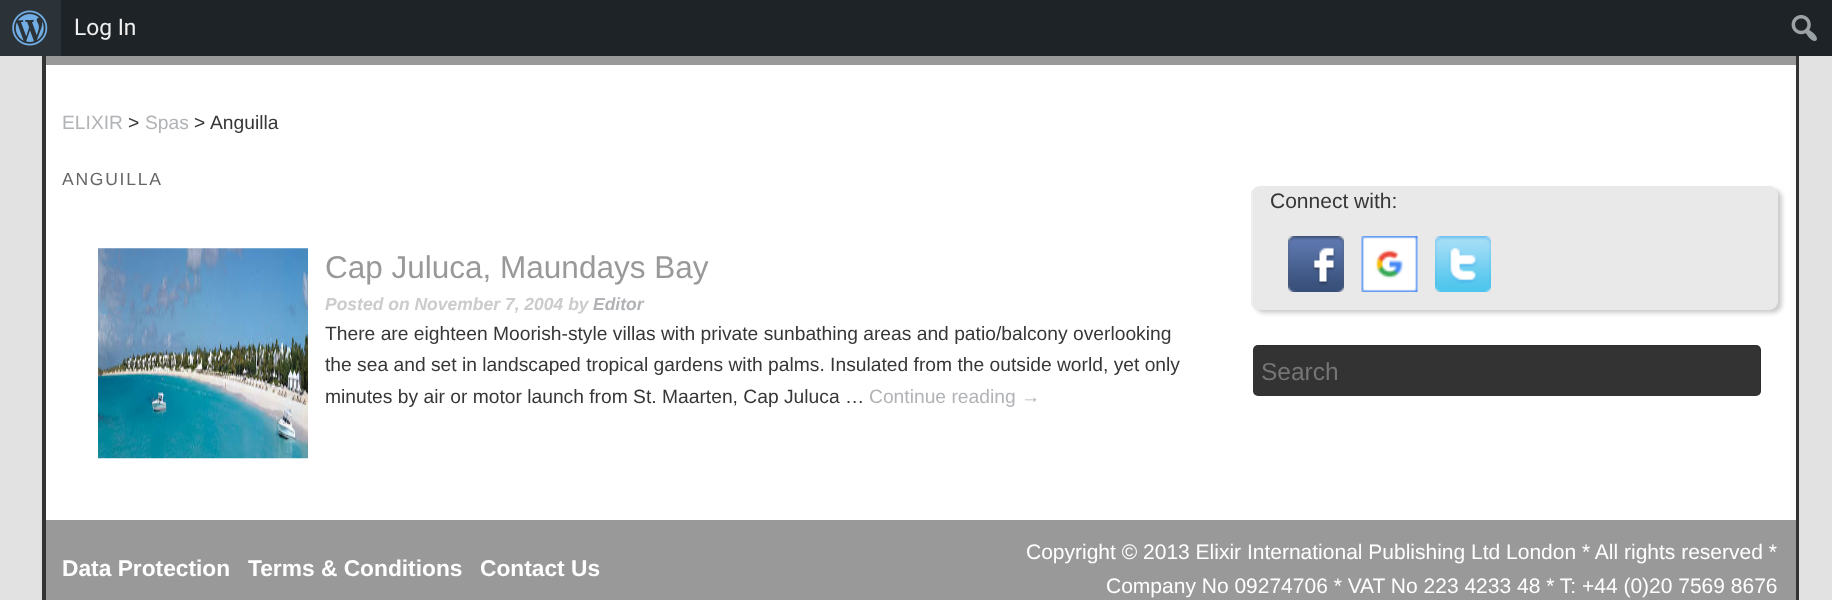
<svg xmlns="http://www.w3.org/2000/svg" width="1832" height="600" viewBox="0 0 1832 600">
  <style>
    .t1 { font: 22.75px Roboto; fill: #f0f0f1; }
    .t2 { font: 19.25px Liberation Sans; fill: #b1b3b6; }
    .t3 { font: 19.25px Liberation Sans; fill: #373737; }
    .t4 { font: 17.5px Liberation Sans; letter-spacing: 1.75px; fill: #666; }
    .t5 { font: 31.5px Liberation Sans; fill: #999; }
    .t6 { font: italic bold 17.5px Liberation Sans; fill: #ccc; }
    .t7 { font: italic bold 17.5px Liberation Sans; fill: #b1b3b6; }
    .t8 { font: 21px Liberation Sans; fill: #373737; }
    .t9 { font: 24.5px Liberation Sans; fill: #757575; }
    .t10 { font: bold 22.75px Liberation Sans; fill: #fff; }
    .t11 { font: 21px Liberation Sans; fill: #fff; }
  </style>
  <rect width="100%" height="100%" fill="#e2e2e2"/>
  <path d="M1799-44V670L1796 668V-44Z" fill="#333"/>
  <path d="M42 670V-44H46V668Z" fill="#333"/>
  <rect x="61" y="0" width="1771" height="56" fill="#1d2327"/>
  <rect x="0" y="0" width="61" height="56" fill="#2c3338"/>
  <image x="12" y="10" width="36" height="36" href="images/1.png"/>
  <text x="74" y="35" class="t1">Log In</text>
  <image x="1791" y="15" width="26" height="26" href="images/2.png"/>
  <rect x="46" y="65" width="1750" height="455" fill="#fff"/>
  <rect x="46" y="56" width="1750" height="9" fill="#999"/>
  <text x="62" y="129" class="t2">ELIXIR</text>
  <text x="128" y="129" class="t3">&gt;</text>
  <text x="145" y="129" class="t2">Spas</text>
  <text x="194" y="129" class="t3">&gt;</text>
  <text x="210" y="129" class="t3">Anguilla</text>
  <text x="62" y="185" class="t4">ANGUILLA</text>
  <image x="98" y="248" width="210" height="211" href="images/3.png"/>
  <text x="325" y="278" class="t5">Cap Juluca, Maundays Bay</text>
  <text x="325" y="310" class="t6">Posted on November 7, 2004 by</text>
  <text x="593" y="310" class="t7">Editor</text>
  <text x="325" y="340" class="t3">There are eighteen Moorish-style villas with private sunbathing areas and patio/balcony overlooking</text>
  <text x="325" y="371" class="t3">the sea and set in landscaped tropical gardens with palms. Insulated from the outside world, yet only</text>
  <text x="325" y="403" class="t3">minutes by air or motor launch from St. Maarten, Cap Juluca …</text>
  <text x="869" y="403" class="t2">Continue reading →</text>
  <rect x="1255" y="189" width="527" height="124" rx="9" fill="#ccc" filter="blur(2px)"/>
  <rect x="1251" y="186" width="527" height="124" rx="9" fill="#e9e9e9"/>
  <rect x="1251" y="191" width="2" height="115" fill="#eee"/>
  <text x="1270" y="208" class="t8">Connect with:</text>
  <image x="1288" y="236" width="56" height="56" href="images/4.png"/>
  <image x="1361" y="236" width="57" height="56" href="images/5.png"/>
  <image x="1435" y="236" width="56" height="56" href="images/6.png"/>
  <rect x="1253" y="345" width="508" height="51" rx="5" fill="#333"/>
  <path d="M1258 346H1755C1758 346 1760 349 1760 352V392L1759 395C1760 394 1761 392 1761 391V350C1761 347 1759 345 1756 345H1258C1255 345 1253 347 1253 350V352C1253 349 1255 346 1258 346Z" fill="#0000001a"/>
  <text x="1261" y="380" class="t9">Search</text>
  <rect x="46" y="520" width="1750" height="80" fill="#999"/>
  <text x="62" y="576" class="t10">Data Protection</text>
  <text x="248" y="576" class="t10">Terms &amp; Conditions</text>
  <text x="480" y="576" class="t10">Contact Us</text>
  <text x="1026" y="559" class="t11">Copyright © 2013 Elixir International Publishing Ltd London * All rights reserved *</text>
  <text x="1106" y="593" class="t11">Company No 09274706 * VAT No 223 4233 48 * T: +44 (0)20 7569 8676</text>
</svg>
